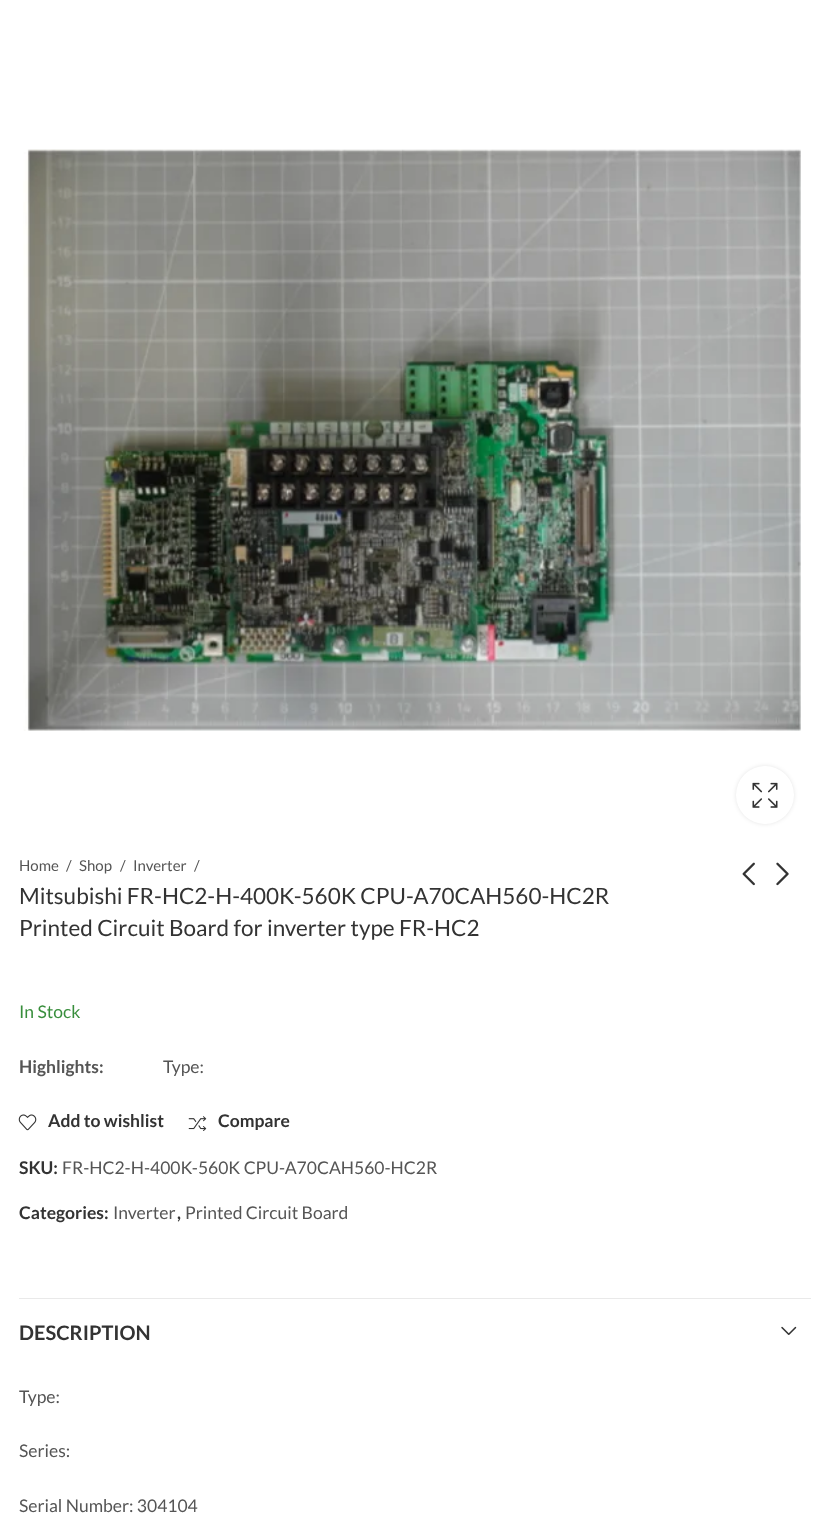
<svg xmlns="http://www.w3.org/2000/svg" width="830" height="1523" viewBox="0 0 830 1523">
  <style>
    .t1 { font: 15px Lato; fill: #555; }
    .t2 { font: 22.5px Lato; fill: #333; }
    .t3 { font: 17.5px Lato; fill: #388e3c; }
    .t4 { font: bold 17.5px Lato; fill: #555; }
    .t5 { font: 17.5px Lato; fill: #555; }
    .t6 { font: bold 17.5px Lato; fill: #333; }
    .t7 { font: bold 20px Lato; fill: #333; }
  </style>
  <rect width="100%" height="100%" fill="#fff"/>
  <image x="23" y="149" width="778" height="582" href="images/1.png"/>
  <rect x="736" y="766" width="58" height="58" rx="29" fill="#0000001a" filter="blur(2px)"/>
  <circle cx="765" cy="795" r="29" fill="#fff"/>
  <image x="752" y="782" width="26" height="26" href="images/2.png"/>
  <text x="19" y="871" class="t1">Home</text>
  <text x="66" y="871" class="t1">/</text>
  <text x="79" y="871" class="t1">Shop</text>
  <text x="120" y="871" class="t1">/</text>
  <text x="133" y="871" class="t1">Inverter</text>
  <text x="194" y="871" class="t1">/</text>
  <image x="742" y="862" width="13" height="24" href="images/3.png"/>
  <image x="776" y="862" width="13" height="24" href="images/4.png"/>
  <text x="19" y="904" class="t2">Mitsubishi FR-HC2-H-400K-560K CPU-A70CAH560-HC2R</text>
  <text x="19" y="936" class="t2">Printed Circuit Board for inverter type FR-HC2</text>
  <text x="19" y="1018" class="t3">In Stock</text>
  <text x="19" y="1073" class="t4">Highlights:</text>
  <text x="163" y="1073" class="t5">Type:</text>
  <image x="18" y="1114" width="19" height="17" href="images/5.png"/>
  <text x="48" y="1127" class="t6">Add to wishlist</text>
  <image x="188" y="1116" width="19" height="15" href="images/6.png"/>
  <text x="218" y="1127" class="t6">Compare</text>
  <text x="19" y="1174" class="t6">SKU:</text>
  <text x="62" y="1174" class="t5">FR-HC2-H-400K-560K CPU-A70CAH560-HC2R</text>
  <text x="19" y="1219" class="t6">Categories:</text>
  <text x="113" y="1219" class="t5">Inverter</text>
  <text x="177" y="1219" class="t6">,</text>
  <text x="185" y="1219" class="t5">Printed Circuit Board</text>
  <rect x="19" y="1298" width="792" height="1" fill="#e9e9e9"/>
  <text x="19" y="1340" class="t7">DESCRIPTION</text>
  <image x="781" y="1326" width="16" height="9" href="images/7.png"/>
  <text x="19" y="1403" class="t5">Type:</text>
  <text x="19" y="1457" class="t5">Series:</text>
  <text x="19" y="1512" class="t5">Serial Number: 304104</text>
</svg>
